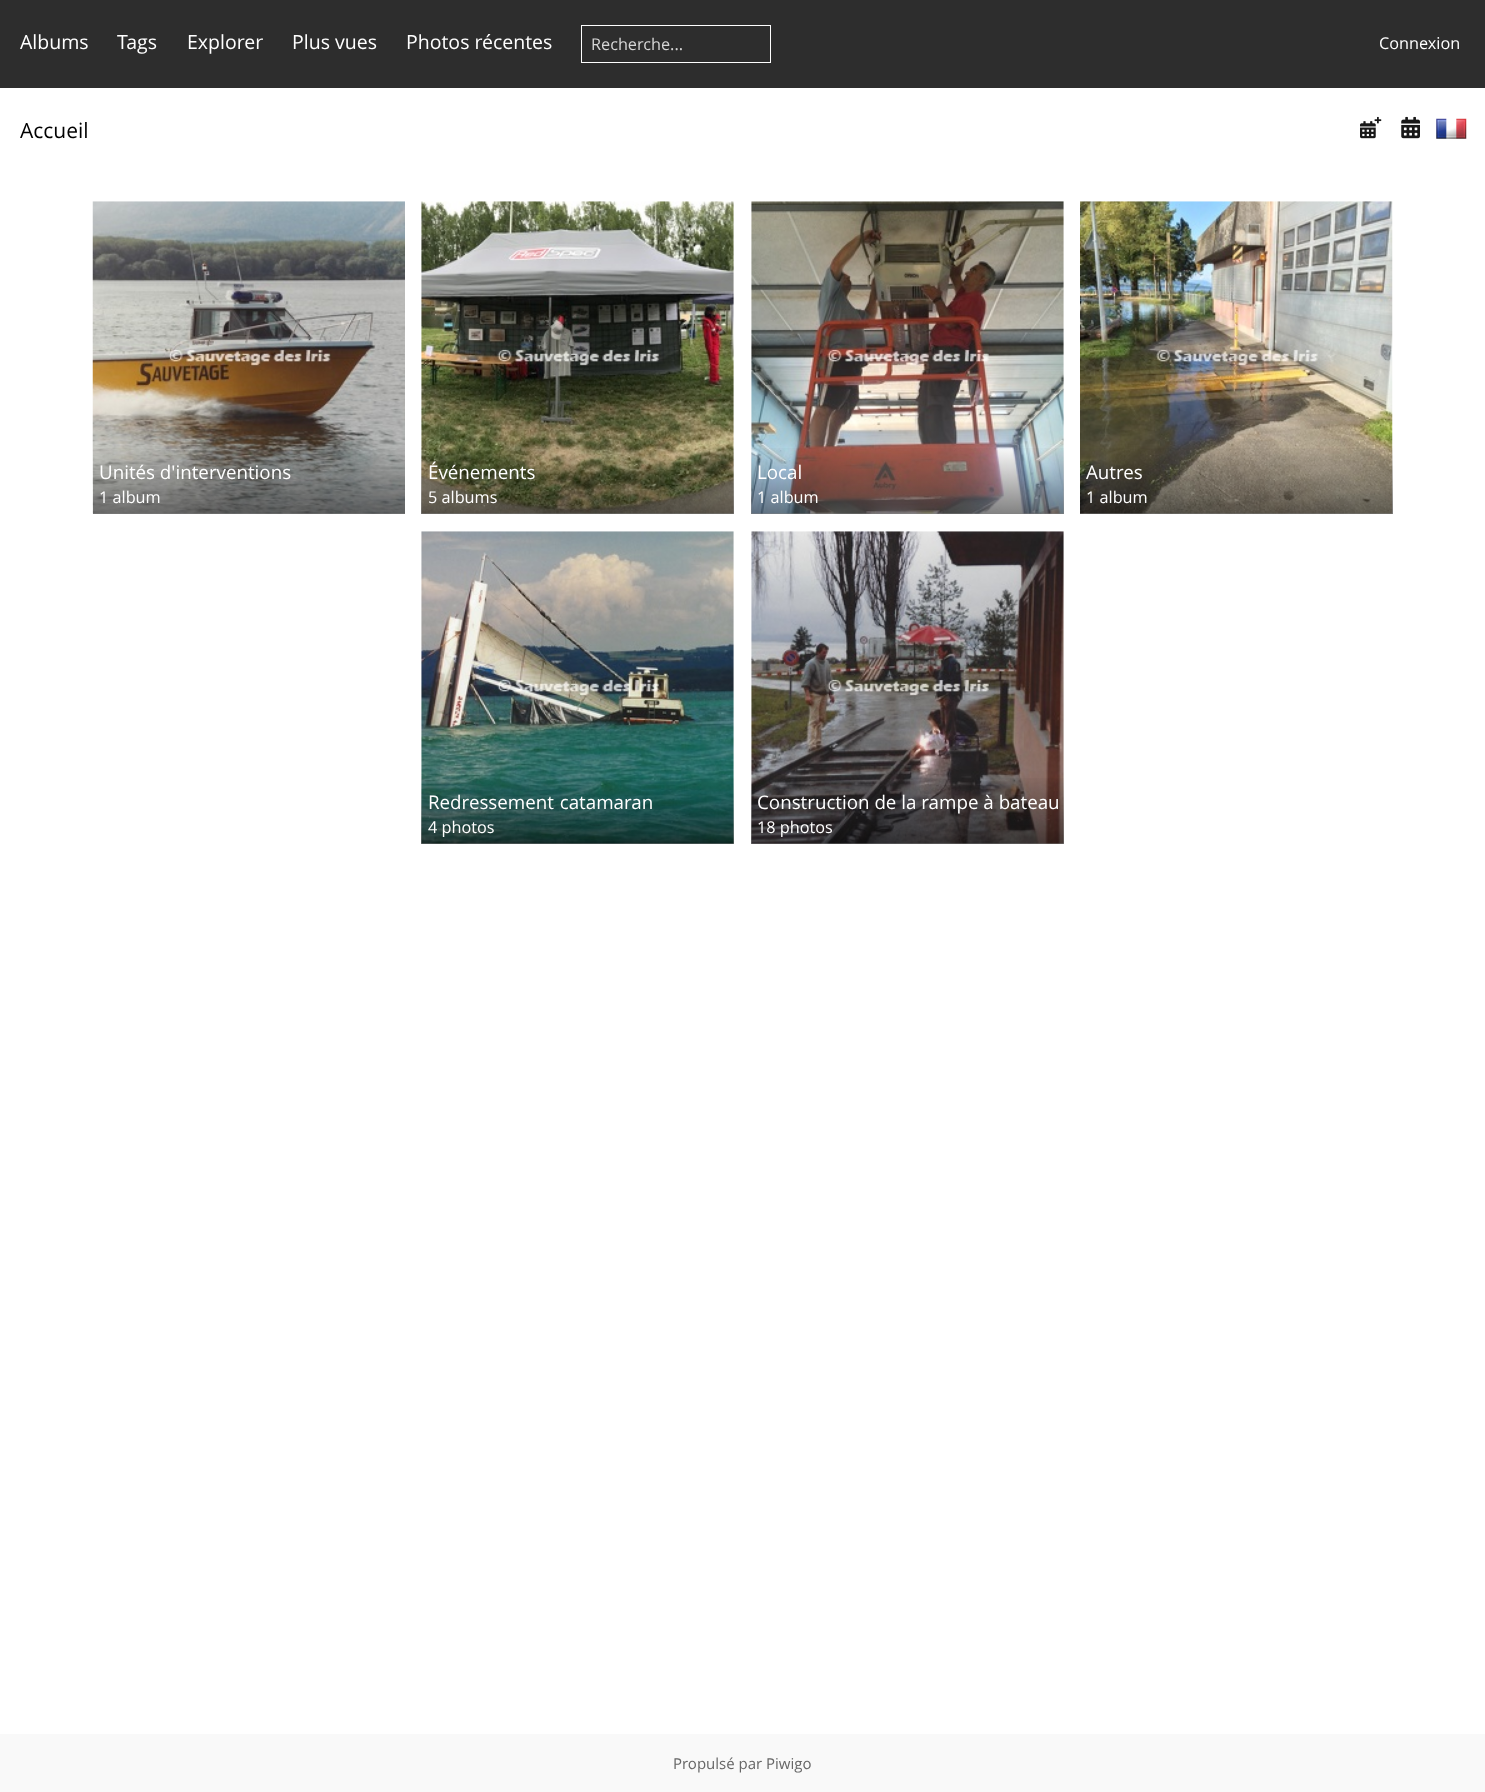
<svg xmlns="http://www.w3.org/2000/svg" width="1485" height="1792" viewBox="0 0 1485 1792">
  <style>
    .t1 { font: 19.5px Open Sans; fill: #fff; }
    .t2 { font: 16.25px Open Sans; fill: #d6d6d6; }
    .t3 { font: 16.25px Open Sans; fill: #fff; }
    .t4 { font: 21px Open Sans; fill: #000; }
    .t5 { font: 18.75px Open Sans; fill: #fff; }
    .t6 { font: 15px Open Sans; fill: #666; }
  </style>
  <defs>
    <linearGradient id="g1" gradientUnits="userSpaceOnUse" x1="249" y1="446" x2="249" y2="515"><stop offset="0" stop-color="#000" stop-opacity="0.01"/><stop offset="1" stop-color="#000" stop-opacity="0.5"/></linearGradient>
    <linearGradient id="g2" gradientUnits="userSpaceOnUse" x1="578" y1="446" x2="578" y2="515"><stop offset="0" stop-color="#000" stop-opacity="0.01"/><stop offset="1" stop-color="#000" stop-opacity="0.5"/></linearGradient>
    <linearGradient id="g3" gradientUnits="userSpaceOnUse" x1="908" y1="446" x2="908" y2="515"><stop offset="0" stop-color="#000" stop-opacity="0.01"/><stop offset="1" stop-color="#000" stop-opacity="0.5"/></linearGradient>
    <linearGradient id="g4" gradientUnits="userSpaceOnUse" x1="1236" y1="446" x2="1236" y2="515"><stop offset="0" stop-color="#000" stop-opacity="0.01"/><stop offset="1" stop-color="#000" stop-opacity="0.5"/></linearGradient>
    <linearGradient id="g5" gradientUnits="userSpaceOnUse" x1="578" y1="776" x2="578" y2="845"><stop offset="0" stop-color="#000" stop-opacity="0.01"/><stop offset="1" stop-color="#000" stop-opacity="0.5"/></linearGradient>
    <linearGradient id="g6" gradientUnits="userSpaceOnUse" x1="908" y1="776" x2="908" y2="845"><stop offset="0" stop-color="#000" stop-opacity="0.01"/><stop offset="1" stop-color="#000" stop-opacity="0.5"/></linearGradient>
  </defs>
  <rect width="100%" height="100%" fill="#fff"/>
  <rect x="0" y="0" width="1485" height="88" fill="#2d2d2d"/>
  <text x="20" y="49" class="t1">Albums</text>
  <text x="117" y="49" class="t1">Tags</text>
  <text x="187" y="49" class="t1">Explorer</text>
  <text x="292" y="49" class="t1">Plus vues</text>
  <text x="406" y="49" class="t1">Photos récentes</text>
  <rect x="581.5" y="25.5" width="189" height="37" fill="none" stroke="#fff"/>
  <text x="591" y="50" class="t2">Recherche...</text>
  <text x="1379" y="49" class="t3">Connexion</text>
  <text x="20" y="138" class="t4">Accueil</text>
  <image x="1360" y="116" width="22" height="23" href="images/1.png"/>
  <image x="1401" y="116" width="19" height="23" href="images/2.png"/>
  <image x="1436" y="118" width="31" height="21" href="images/3.png"/>
  <image x="92" y="201" width="313" height="313" href="images/4.png"/>
  <rect x="93" y="448" width="312" height="66" fill="url(#g1)"/>
  <text x="99" y="479" class="t5">Unités d'interventions</text>
  <text x="99" y="503" class="t3">1 album</text>
  <image x="421" y="201" width="313" height="313" href="images/5.png"/>
  <rect x="421" y="448" width="313" height="66" fill="url(#g2)"/>
  <text x="428" y="479" class="t5">Événements</text>
  <text x="428" y="503" class="t3">5 albums</text>
  <image x="751" y="201" width="313" height="313" href="images/6.png"/>
  <rect x="751" y="448" width="313" height="66" fill="url(#g3)"/>
  <text x="757" y="479" class="t5">Local</text>
  <text x="757" y="503" class="t3">1 album</text>
  <image x="1080" y="201" width="313" height="313" href="images/7.png"/>
  <rect x="1080" y="448" width="313" height="66" fill="url(#g4)"/>
  <text x="1086" y="479" class="t5">Autres</text>
  <text x="1086" y="503" class="t3">1 album</text>
  <image x="421" y="531" width="313" height="313" href="images/8.png"/>
  <rect x="421" y="778" width="313" height="66" fill="url(#g5)"/>
  <text x="428" y="809" word-spacing="1" class="t5">Redressement catamaran</text>
  <text x="428" y="833" class="t3">4 photos</text>
  <image x="751" y="531" width="313" height="313" href="images/9.png"/>
  <rect x="751" y="778" width="313" height="66" fill="url(#g6)"/>
  <text x="757" y="809" class="t5">Construction de la rampe à bateau</text>
  <text x="757" y="833" class="t3">18 photos</text>
  <rect x="0" y="1734" width="1485" height="58" fill="#f9f9f9"/>
  <text x="673" y="1769" class="t6">Propulsé par</text>
  <text x="766" y="1769" class="t6">Piwigo</text>
</svg>
